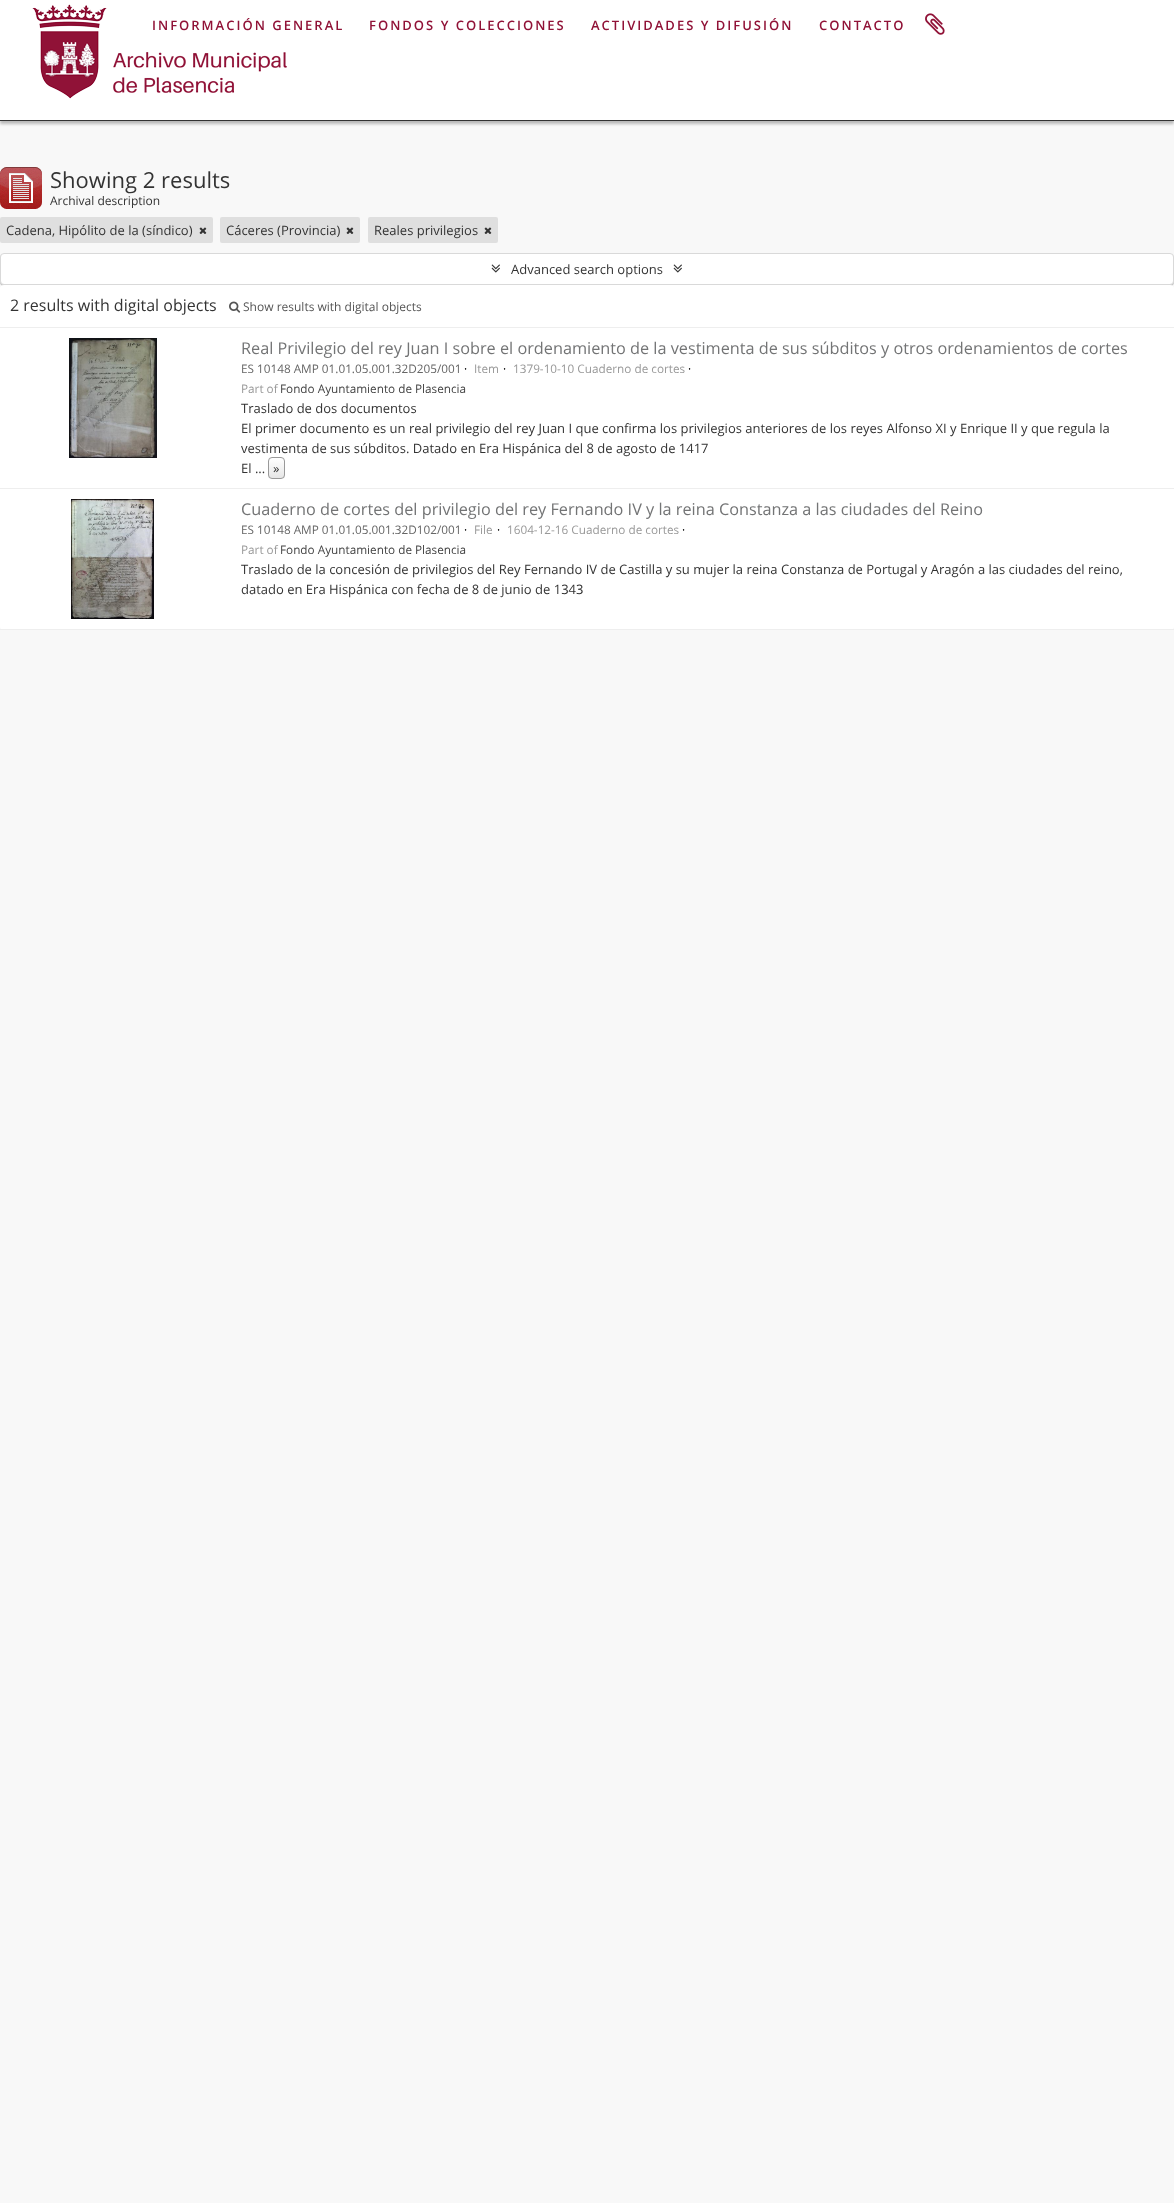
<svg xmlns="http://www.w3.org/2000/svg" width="1174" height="2203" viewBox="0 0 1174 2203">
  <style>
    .t1 { font: 600 13px Open Sans; letter-spacing: 2px; fill: #901237; }
    .t2 { font: 22px Open Sans; fill: #333; }
    .t3 { font: 12px Open Sans; fill: #333; }
    .t4 { font: 13px Open Sans; fill: #333; }
    .t5 { font: 16px Open Sans; fill: #333; }
    .t6 { font: 12px Open Sans; fill: #555; }
    .t7 { font: 16.25px Open Sans; fill: #737475; }
    .t8 { font: 11.75px Open Sans; fill: #666; }
    .t9 { font: 11.75px Open Sans; fill: #000; }
    .t10 { font: 11.75px Open Sans; fill: #999; }
    .t11 { font: 11.75px Open Sans; fill: #444; }
  </style>
  <defs>
    <clipPath id="clip1"><rect x="268" y="457" width="17" height="22" rx="4"/></clipPath>
    <linearGradient id="g1" gradientUnits="userSpaceOnUse" x1="277" y1="458" x2="277" y2="478"><stop offset="0" stop-color="#fff"/><stop offset="1" stop-color="#e6e6e6"/></linearGradient>
  </defs>
  <rect width="100%" height="100%" fill="#f8f8f8"/>
  <rect x="0" y="3" width="1174" height="121" fill="#00000040" filter="blur(1.5px)"/>
  <rect x="0" y="0" width="1174" height="120" fill="#fff"/>
  <rect x="0" y="120" width="1174" height="1" fill="#333"/>
  <image x="32" y="4" width="255" height="95" href="images/1.png"/>
  <text x="152" y="30" class="t1">INFORMACIÓN GENERAL</text>
  <text x="369" y="30" class="t1">FONDOS Y COLECCIONES</text>
  <text x="591" y="30" class="t1">ACTIVIDADES Y DIFUSIÓN</text>
  <text x="819" y="30" class="t1">CONTACTO</text>
  <image x="925" y="13" width="20" height="22" href="images/2.png"/>
  <image x="0" y="167" width="42" height="42" href="images/3.png"/>
  <text x="50" y="188" class="t2">Showing 2 results</text>
  <text x="50" y="205" class="t3">Archival description</text>
  <rect x="0" y="217" width="213" height="26" rx="2" fill="#dfdfdf"/>
  <text x="6" y="235" class="t4">Cadena, Hipólito de la (síndico)</text>
  <image x="199" y="227" width="8" height="7" href="images/4.png"/>
  <rect x="220" y="217" width="140" height="26" rx="2" fill="#dfdfdf"/>
  <text x="226" y="235" class="t4">Cáceres (Provincia)</text>
  <image x="346" y="227" width="8" height="7" href="images/4.png"/>
  <rect x="368" y="217" width="130" height="26" rx="2" fill="#dfdfdf"/>
  <text x="374" y="235" class="t4">Reales privilegios</text>
  <image x="484" y="227" width="8" height="7" href="images/4.png"/>
  <rect x="0" y="254" width="1174" height="32" rx="4" fill="#00000033" filter="blur(0.5px)"/>
  <rect x="0.5" y="253.5" width="1173" height="31" rx="3.5" fill="#fff" stroke="#d9d9d9"/>
  <image x="491" y="264" width="9" height="9" href="images/5.png"/>
  <text x="511" y="274" class="t4">Advanced search options</text>
  <image x="673" y="264" width="9" height="9" href="images/5.png"/>
  <rect x="0" y="285" width="1174" height="345" rx="4" fill="#fff"/>
  <rect x="0" y="327" width="1174" height="1" fill="#eee"/>
  <text x="10" y="311" class="t5">2 results with digital objects</text>
  <image x="229" y="301" width="12" height="12" href="images/6.png"/>
  <text x="243" y="311" class="t6">Show results with digital objects</text>
  <rect x="0" y="488" width="1174" height="1" fill="#eee"/>
  <image x="69" y="338" width="88" height="120" href="images/7.png"/>
  <text x="241" y="354" class="t7">Real Privilegio del rey Juan I sobre el ordenamiento de la vestimenta de sus súbditos y otros ordenamientos de cortes</text>
  <text x="241" y="373" class="t8">ES 10148 AMP 01.01.05.001.32D205/001</text>
  <text x="464" y="373" class="t9">·</text>
  <text x="474" y="373" class="t10">Item</text>
  <text x="503" y="373" class="t9">·</text>
  <text x="513" y="373" class="t10">1379-10-10 Cuaderno de cortes</text>
  <text x="688" y="373" class="t9">·</text>
  <text x="241" y="393" class="t10">Part of</text>
  <text x="280" y="393" class="t11">Fondo Ayuntamiento de Plasencia</text>
  <text x="241" y="413" class="t4">Traslado de dos documentos</text>
  <text x="241" y="433" class="t4">El primer documento es un real privilegio del rey Juan I que confirma los privilegios anteriores de los reyes Alfonso XI y Enrique II y que regula la</text>
  <text x="241" y="453" class="t4">vestimenta de sus súbditos. Datado en Era Hispánica del 8 de agosto de 1417</text>
  <text x="241" y="473" class="t4">El ...</text>
  <g clip-path="url(#clip1)">
    <rect x="268" y="458" width="17" height="20" fill="url(#g1)"/>
  </g>
  <rect x="268.5" y="457.5" width="16" height="21" rx="3.5" fill="none" stroke="#999"/>
  <text x="273" y="473" class="t4">»</text>
  <rect x="0" y="629" width="1174" height="1" fill="#eee"/>
  <image x="71" y="499" width="83" height="120" href="images/8.png"/>
  <text x="241" y="515" class="t7">Cuaderno de cortes del privilegio del rey Fernando IV y la reina Constanza a las ciudades del Reino</text>
  <text x="241" y="534" class="t8">ES 10148 AMP 01.01.05.001.32D102/001</text>
  <text x="464" y="534" class="t9">·</text>
  <text x="474" y="534" class="t10">File</text>
  <text x="497" y="534" class="t9">·</text>
  <text x="507" y="534" class="t10">1604-12-16 Cuaderno de cortes</text>
  <text x="682" y="534" class="t9">·</text>
  <text x="241" y="554" class="t10">Part of</text>
  <text x="280" y="554" class="t11">Fondo Ayuntamiento de Plasencia</text>
  <text x="241" y="574" class="t4">Traslado de la concesión de privilegios del Rey Fernando IV de Castilla y su mujer la reina Constanza de Portugal y Aragón a las ciudades del reino,</text>
  <text x="241" y="594" class="t4">datado en Era Hispánica con fecha de 8 de junio de 1343</text>
</svg>
